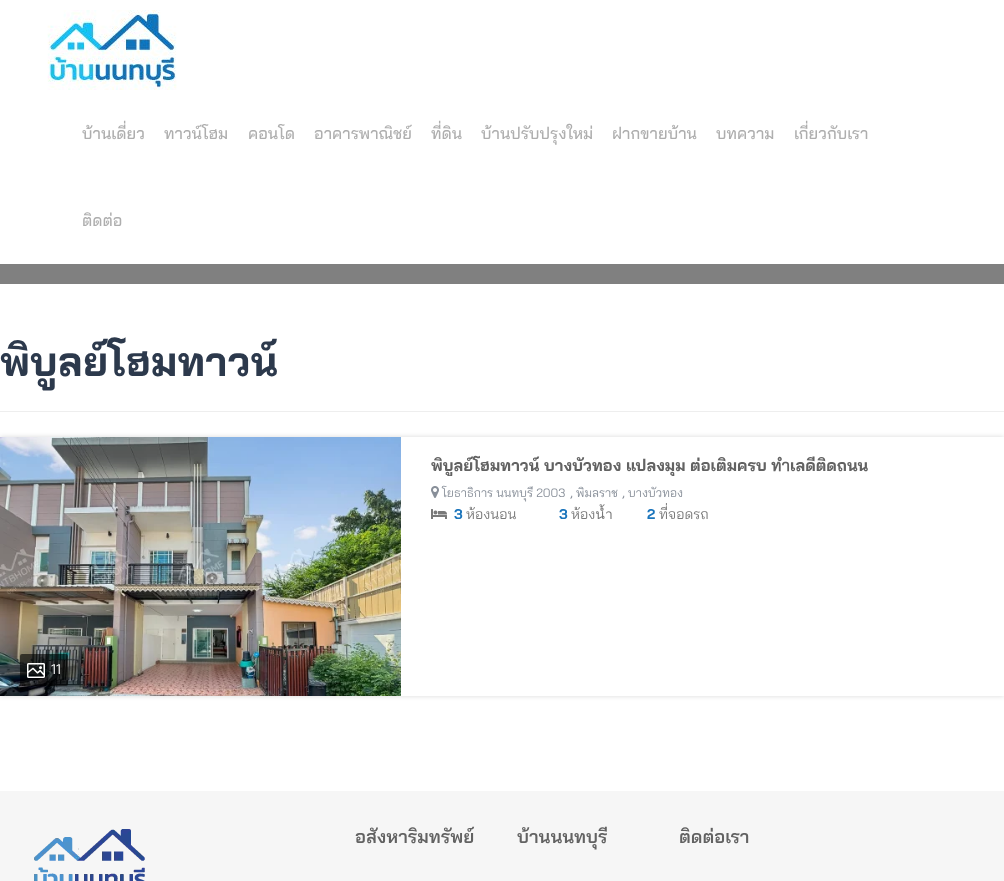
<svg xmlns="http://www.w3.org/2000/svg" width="1004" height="881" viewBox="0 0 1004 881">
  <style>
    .t1 { font: 500 16px Bai Jamjuree; fill: #aeaeae; }
    .t2 { font: bold 41px Bai Jamjuree; fill: #2c394c; }
    .t3 { font: bold 16px Bai Jamjuree; fill: #626262; }
    .t4 { font: 12px Bai Jamjuree; fill: #888f99; }
    .t5 { font: 14px Bai Jamjuree; fill: #888f99; }
    .t6 { font: bold 14px Bai Jamjuree; fill: #1b75bc; }
    .t7 { font: 14px Bai Jamjuree; fill: #797979; }
    .t8 { font: 14px Bai Jamjuree; fill: #fff; }
    .t9 { font: 600 18px Bai Jamjuree; fill: #626262; }
  </style>
  <defs>
    <clipPath id="clip1"><path d="M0 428H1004V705H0ZM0 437H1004V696H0Z" clip-rule="evenodd"/></clipPath>
    <clipPath id="clip2"><rect x="431" y="455" width="553" height="21"/></clipPath>
  </defs>
  <rect width="100%" height="100%" fill="#fff"/>
  <rect x="0" y="264" width="1004" height="20" fill="#808080"/>
  <image x="47" y="10" width="130" height="80" href="images/1.png"/>
  <text x="82" y="139" class="t1">บ้านเดี่ยว</text>
  <text x="164" y="139" class="t1">ทาวน์โฮม</text>
  <text x="248" y="139" class="t1">คอนโด</text>
  <text x="314" y="139" class="t1">อาคารพาณิชย์</text>
  <text x="431" y="139" class="t1">ที่ดิน</text>
  <text x="481" y="139" class="t1">บ้านปรับปรุงใหม่</text>
  <text x="612" y="139" class="t1">ฝากขายบ้าน</text>
  <text x="716" y="139" class="t1">บทความ</text>
  <text x="794" y="139" class="t1">เกี่ยวกับเรา</text>
  <text x="82" y="226" class="t1">ติดต่อ</text>
  <rect x="0" y="411" width="1004" height="1" fill="#eee"/>
  <text x="0" y="376" class="t2">พิบูลย์โฮมทาวน์</text>
  <g clip-path="url(#clip1)">
    <rect x="0" y="437" width="1004" height="259" fill="#00000026" filter="blur(2.5px)"/>
  </g>
  <g clip-path="url(#clip2)">
    <text x="431" y="471" class="t3">พิบูลย์โฮมทาวน์ บางบัวทอง แปลงมุม ต่อเติมครบ ทำเลดีติดถนน</text>
  </g>
  <image x="431" y="486" width="8" height="12" href="images/2.png"/>
  <text x="442" y="497" class="t4">โยธาธิการ นนทบุรี 2003</text>
  <text x="570" y="497" class="t5">,</text>
  <text x="576" y="497" class="t4">พิมลราช</text>
  <text x="628" y="497" class="t4">บางบัวทอง</text>
  <text x="622" y="497" class="t5">,</text>
  <image x="431" y="509" width="16" height="10" href="images/3.png"/>
  <text x="454" y="519" class="t6">3</text>
  <text x="466" y="519" class="t7">ห้องนอน</text>
  <text x="559" y="519" class="t6">3</text>
  <text x="571" y="519" class="t7">ห้องน้ำ</text>
  <text x="647" y="519" class="t6">2</text>
  <text x="659" y="519" class="t7">ที่จอดรถ</text>
  <image x="0" y="437" width="401" height="259" href="images/4.png"/>
  <rect x="20" y="654" width="48" height="32" rx="2" fill="#00000099"/>
  <image x="27" y="663" width="18" height="15" href="images/5.png"/>
  <text x="51" y="674" class="t8">11</text>
  <rect x="0" y="791" width="1004" height="90" fill="#f6f6f6"/>
  <image x="34" y="829" width="111" height="52" href="images/6.png"/>
  <text x="355" y="843" class="t9">อสังหาริมทรัพย์</text>
  <text x="517" y="843" class="t9">บ้านนนทบุรี</text>
  <text x="679" y="843" class="t9">ติดต่อเรา</text>
</svg>
